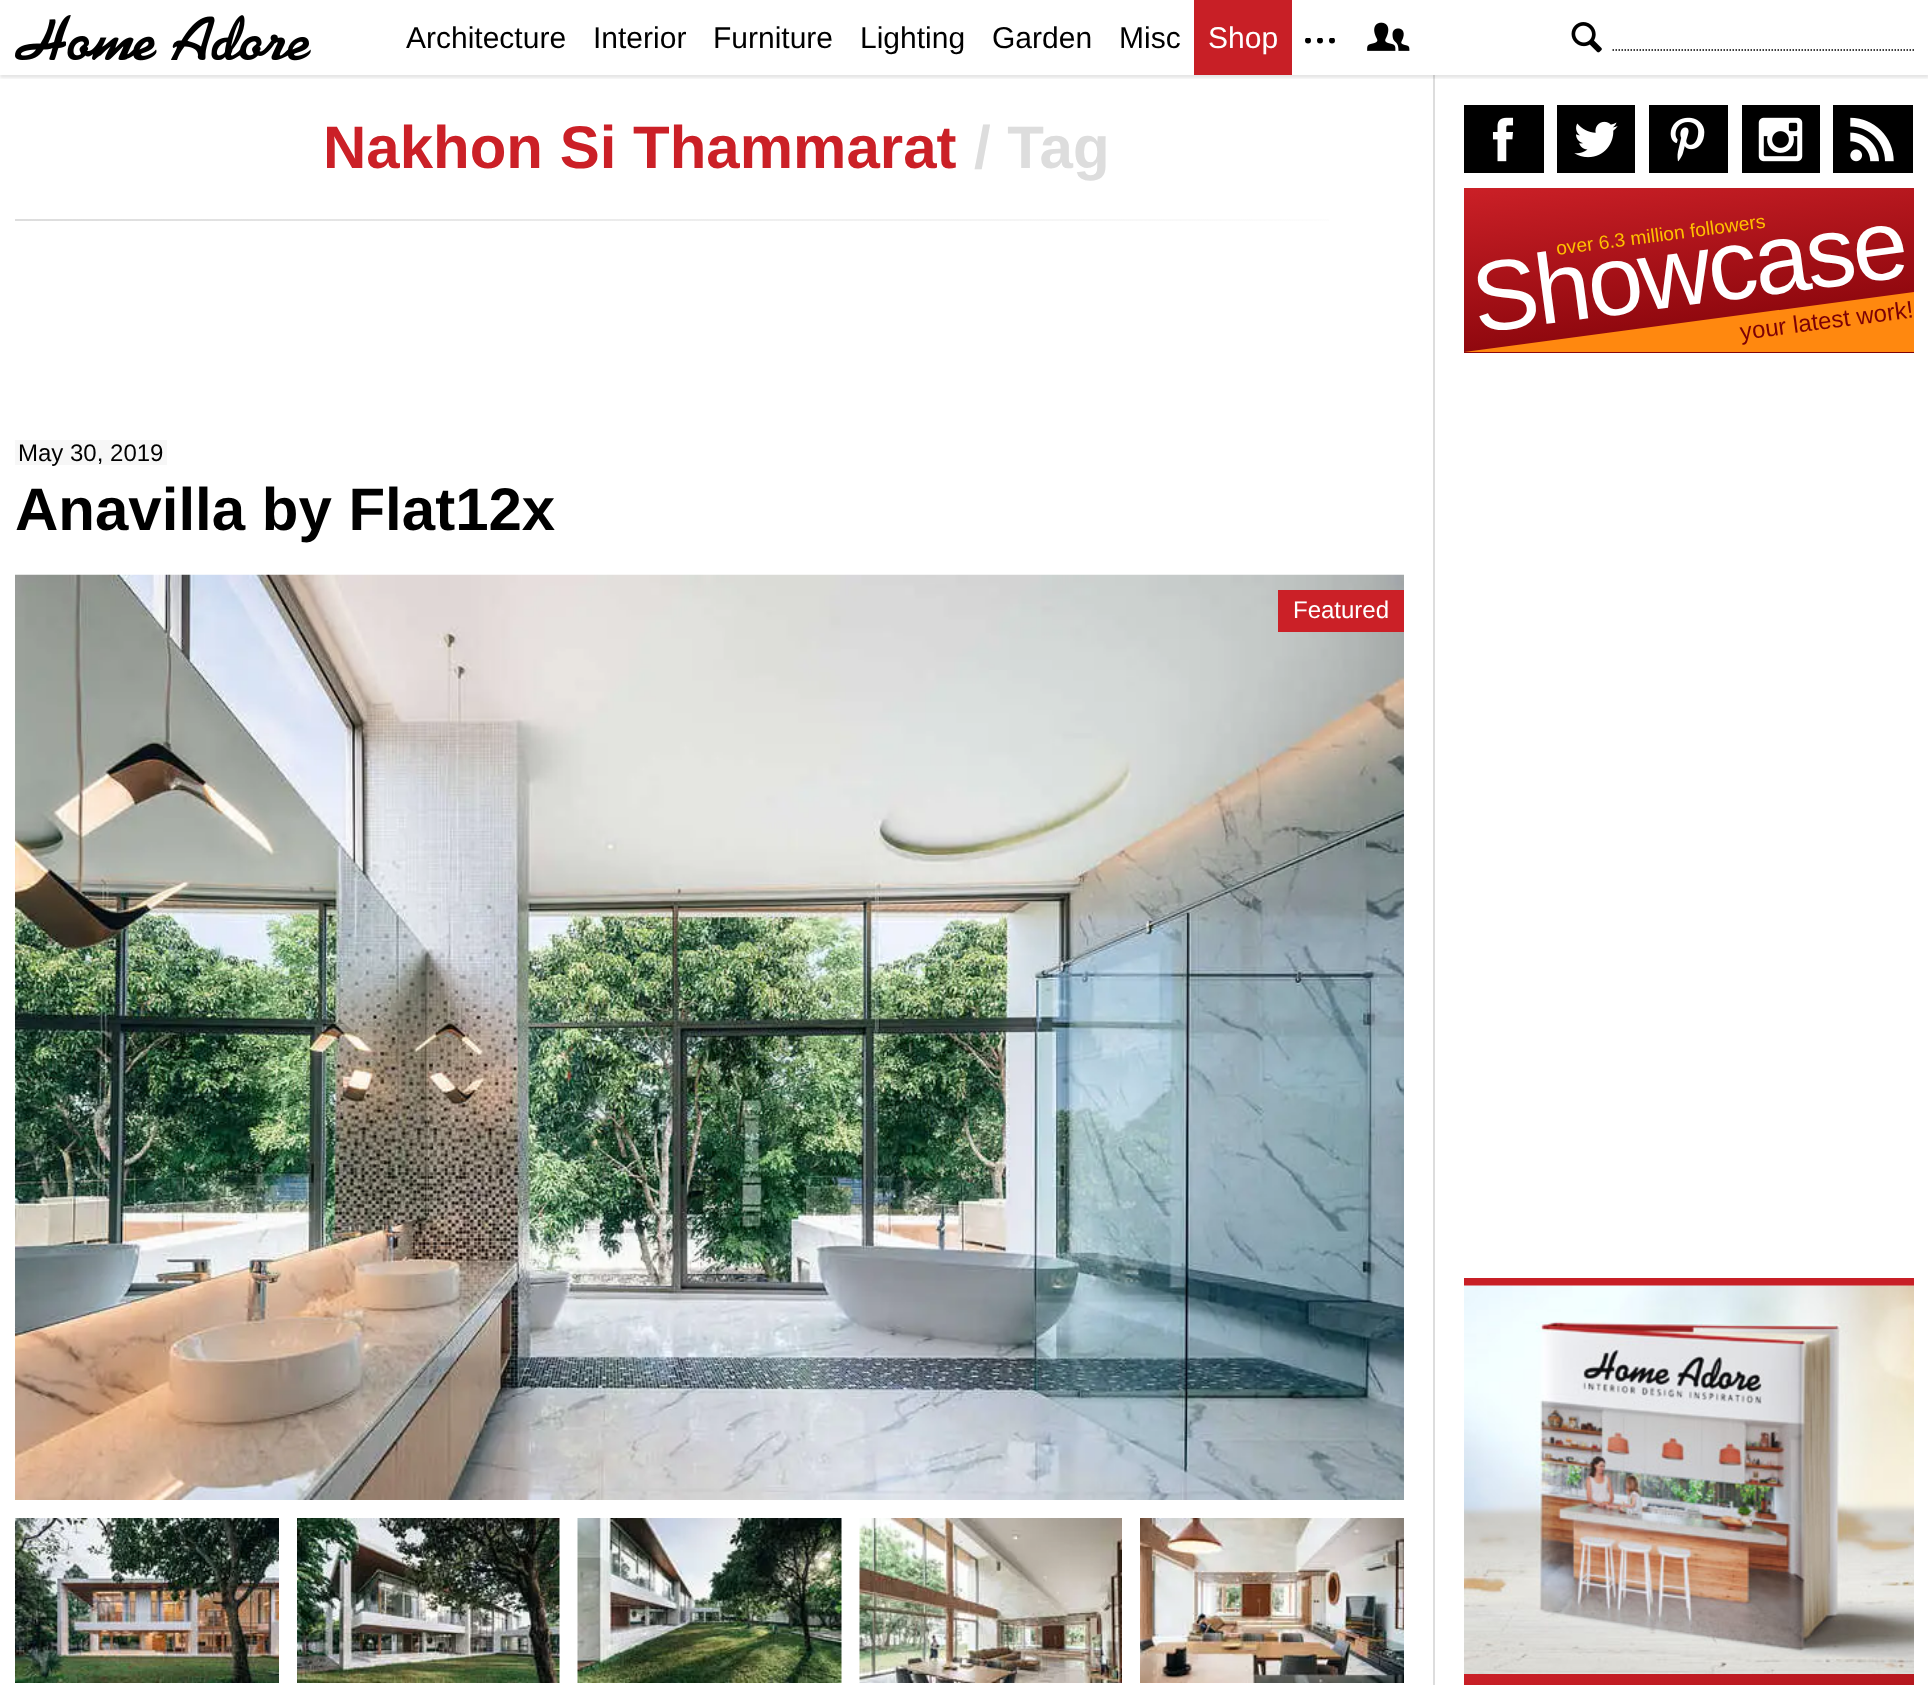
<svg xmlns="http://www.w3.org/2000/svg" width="1928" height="1685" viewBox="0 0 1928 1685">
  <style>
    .t1 { font: 30px Liberation Sans; fill: #000; }
    .t2 { font: 30px Liberation Sans; fill: #fff; }
    .t3 { font: bold 60px Liberation Sans; fill: #cb2027; }
    .t4 { font: bold 60px Liberation Sans; fill: #ddd; }
    .t5 { font: 24px Liberation Sans; fill: #000; }
    .t6 { font: bold 60px Liberation Sans; fill: #000; }
    .t7 { font: 24px Liberation Sans; fill: #fff; }
    .t8 { font: 19.25px Liberation Sans; fill: #ffc000; }
    .t9 { font: 99.5px Liberation Sans; letter-spacing: -3px; fill: #fff; }
    .t10 { font: 24px Liberation Sans; fill: #7c0006; }
  </style>
  <defs>
    <clipPath id="clip1"><rect x="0" y="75" width="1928" height="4"/></clipPath>
    <clipPath id="clip2"><rect x="1305" y="38" width="30" height="10"/></clipPath>
    <linearGradient id="g1" gradientUnits="userSpaceOnUse" x1="1433" y1="220" x2="15" y2="220"><stop offset="0" stop-color="#fff"/><stop offset="1" stop-color="#ddd"/></linearGradient>
    <linearGradient id="g2" gradientUnits="userSpaceOnUse" x1="1676" y1="162" x2="1702" y2="378"><stop offset="0" stop-color="#cb2027"/><stop offset="1" stop-color="#7c0006"/></linearGradient>
    <linearGradient id="g3" gradientUnits="userSpaceOnUse" x1="1676" y1="1648" x2="1702" y2="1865"><stop offset="0" stop-color="#cb2027"/><stop offset="1" stop-color="#7c0006"/></linearGradient>
  </defs>
  <rect width="100%" height="100%" fill="#fff"/>
  <rect x="1433" y="75" width="2" height="1610" fill="#ddd"/>
  <g clip-path="url(#clip1)">
    <rect x="0" y="3" width="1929" height="75" fill="#0000001a" filter="blur(1.5px)"/>
  </g>
  <image x="15" y="15" width="296" height="46" href="images/1.png"/>
  <text x="406" y="48" class="t1">Architecture</text>
  <text x="593" y="48" class="t1">Interior</text>
  <text x="713" y="48" class="t1">Furniture</text>
  <text x="860" y="48" class="t1">Lighting</text>
  <text x="992" y="48" class="t1">Garden</text>
  <text x="1119" y="48" class="t1">Misc</text>
  <rect x="1194" y="0" width="98" height="75" fill="#c81f26"/>
  <text x="1208" y="48" class="t2">Shop</text>
  <g clip-path="url(#clip2)">
    <circle cx="1308" cy="40.5" r="3" fill="#000"/>
    <circle cx="1320" cy="40.5" r="3" fill="#000"/>
    <circle cx="1332" cy="40.5" r="3" fill="#000"/>
  </g>
  <image x="1367" y="22" width="43" height="29" href="images/2.png"/>
  <image x="1571" y="22" width="31" height="31" href="images/3.png"/>
  <path d="M1612.5 50H1914" fill="none" stroke="#000" stroke-width="1.5" stroke-dasharray="1.5 1.5"/>
  <text x="323" y="168" class="t3">Nakhon Si Thammarat</text>
  <text x="974" y="168" class="t4">/ Tag</text>
  <rect x="15" y="219" width="1314" height="2" fill="url(#g1)"/>
  <rect x="15" y="440" width="152" height="25" fill="#f7f7f7"/>
  <text x="18" y="461" class="t5">May 30, 2019</text>
  <text x="15" y="530" class="t6">Anavilla by Flat12x</text>
  <image x="15" y="574" width="1389" height="926" href="images/4.png"/>
  <rect x="1278" y="590" width="126" height="42" fill="#cb2027"/>
  <text x="1293" y="618" class="t7">Featured</text>
  <image x="15" y="1518" width="264" height="165" href="images/5.png"/>
  <image x="297" y="1518" width="263" height="165" href="images/6.png"/>
  <image x="577" y="1518" width="265" height="165" href="images/7.png"/>
  <image x="859" y="1518" width="263" height="165" href="images/8.png"/>
  <image x="1140" y="1518" width="264" height="165" href="images/9.png"/>
  <rect x="1464" y="105" width="80" height="68" fill="#000"/>
  <image x="1492" y="117" width="22" height="45" href="images/10.png"/>
  <rect x="1557" y="105" width="78" height="68" fill="#000"/>
  <image x="1574" y="121" width="44" height="37" href="images/11.png"/>
  <rect x="1649" y="105" width="79" height="68" fill="#000"/>
  <image x="1670" y="117" width="35" height="45" href="images/12.png"/>
  <rect x="1742" y="105" width="78" height="68" fill="#000"/>
  <image x="1758" y="117" width="45" height="45" href="images/13.png"/>
  <rect x="1833" y="105" width="80" height="68" fill="#000"/>
  <image x="1850" y="117" width="44" height="45" href="images/14.png"/>
  <rect x="1464" y="188" width="450" height="165" fill="url(#g2)"/>
  <text x="1557" y="255" transform="rotate(-7.5 1557 255)" class="t8">over 6.3 million followers</text>
  <path d="M1914 352H1464L1914 292Z" fill="#ff880f"/>
  <text x="1477" y="333" transform="rotate(-7.5 1477 333)" class="t9">Showcase</text>
  <text x="1741" y="340" transform="rotate(-7.5 1741 340)" class="t10">your latest work!</text>
  <rect x="1464" y="1278" width="450" height="8" fill="#c81f26"/>
  <image x="1464" y="1285" width="450" height="389" href="images/15.png"/>
  <rect x="1464" y="1674" width="450" height="11" fill="url(#g3)"/>
</svg>
